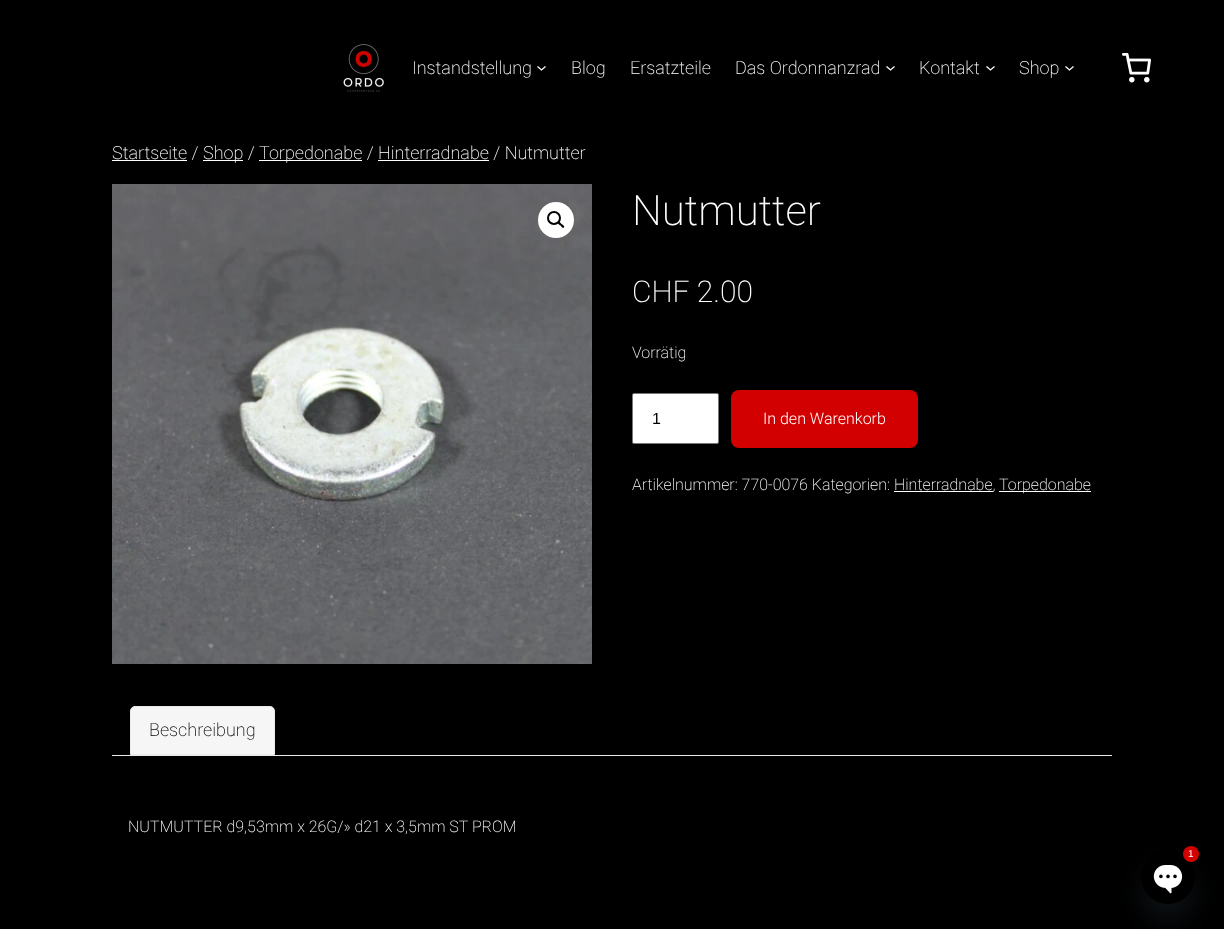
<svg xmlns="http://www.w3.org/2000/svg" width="1224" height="929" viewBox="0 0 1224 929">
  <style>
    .t1 { font: 200 18px Roboto; fill: #fff; }
    .t2 { font: 200 42px Roboto; fill: #fff; }
    .t3 { font: 200 30px Roboto; fill: #fff; }
    .t4 { font: 200 16px Roboto; fill: #fff; }
    .t5 { font: 16px Liberation Sans; fill: #000; }
    .t6 { font: 300 16px Roboto; fill: #fff; }
    .t7 { font: 200 18px Roboto; fill: #000; }
    .t8 { font: 10px Liberation Sans; fill: #fff; }
  </style>
  <rect width="100%" height="100%" fill="#000"/>
  <image x="343" y="44" width="41" height="48" href="images/1.png"/>
  <text x="412" y="74" class="t1">Instandstellung</text>
  <path d="M537.5 66.5L541.5 70L545.5 66.5" fill="none" stroke="#fff" stroke-width="1.3"/>
  <text x="571" y="74" class="t1">Blog</text>
  <text x="630" y="74" class="t1">Ersatzteile</text>
  <text x="735" y="74" class="t1">Das Ordonnanzrad</text>
  <path d="M886.5 66.5L890.5 70L894.5 66.5" fill="none" stroke="#fff" stroke-width="1.3"/>
  <text x="919" y="74" class="t1">Kontakt</text>
  <path d="M986.5 66.5L990.5 70L994.5 66.5" fill="none" stroke="#fff" stroke-width="1.3"/>
  <text x="1019" y="74" class="t1">Shop</text>
  <path d="M1065.5 66.5L1069.5 70L1073.5 66.5" fill="none" stroke="#fff" stroke-width="1.3"/>
  <image x="1122" y="53" width="29" height="30" href="images/2.png"/>
  <rect x="112" y="160" width="75" height="1" fill="#fff"/>
  <text x="112" y="159" class="t1">Startseite /</text>
  <rect x="203" y="160" width="40" height="1" fill="#fff"/>
  <text x="203" y="159" class="t1">Shop /</text>
  <rect x="259" y="160" width="103" height="1" fill="#fff"/>
  <text x="259" y="159" class="t1">Torpedonabe / Hinterradnabe / Nutmutter</text>
  <rect x="378" y="160" width="111" height="1" fill="#fff"/>
  <image x="112" y="184" width="480" height="480" href="images/3.png"/>
  <circle cx="556" cy="220" r="18" fill="#fff"/>
  <circle cx="554" cy="218" r="6" fill="none" stroke="#000" stroke-width="2"/>
  <path d="M558 222C559.5 221 561 223.5 561.5 224C562.5 224.5 565 226.5 564 227.5C562.5 229 561 226 560.5 225.5C559.5 225 557 223 558 222Z" fill="#000"/>
  <text x="632" y="225" class="t2">Nutmutter</text>
  <text x="632" y="302" class="t3">CHF 2.00</text>
  <text x="632" y="358" class="t4">Vorrätig</text>
  <rect x="632.5" y="393.5" width="86" height="50" rx="1.5" fill="#fff" stroke="#767676"/>
  <text x="652" y="424" class="t5">1</text>
  <rect x="731" y="390" width="187" height="58" rx="8" fill="#d20001"/>
  <text x="763" y="424" class="t6">In den Warenkorb</text>
  <text x="632" y="490" class="t4">Artikelnummer: 770-0076 Kategorien: Hinterradnabe,</text>
  <rect x="999" y="491" width="92" height="1" fill="#fff"/>
  <text x="999" y="490" class="t4">Torpedonabe</text>
  <rect x="894" y="491" width="99" height="1" fill="#fff"/>
  <rect x="112" y="755" width="1000" height="1" fill="#eae9eb"/>
  <path d="M135 706.5H270C272.5 706.5 274.5 708.5 274.5 711V754.5H130.5V711C130.5 708.5 132.5 706.5 135 706.5Z" fill="#f6f6f6" stroke="#eae9eb"/>
  <text x="149" y="736" class="t7">Beschreibung</text>
  <text x="128" y="832" class="t4">NUTMUTTER d9,53mm x 26G/» d21 x 3,5mm ST PROM</text>
  <rect x="1141" y="866" width="54" height="54" rx="27" fill="#49687e29" filter="blur(12px)"/>
  <circle cx="1168" cy="877" r="27" fill="#000"/>
  <image x="1153" y="865" width="30" height="29" href="images/4.png"/>
  <circle cx="1191" cy="854" r="8" fill="#d20001"/>
  <text x="1188" y="857" class="t8">1</text>
</svg>
